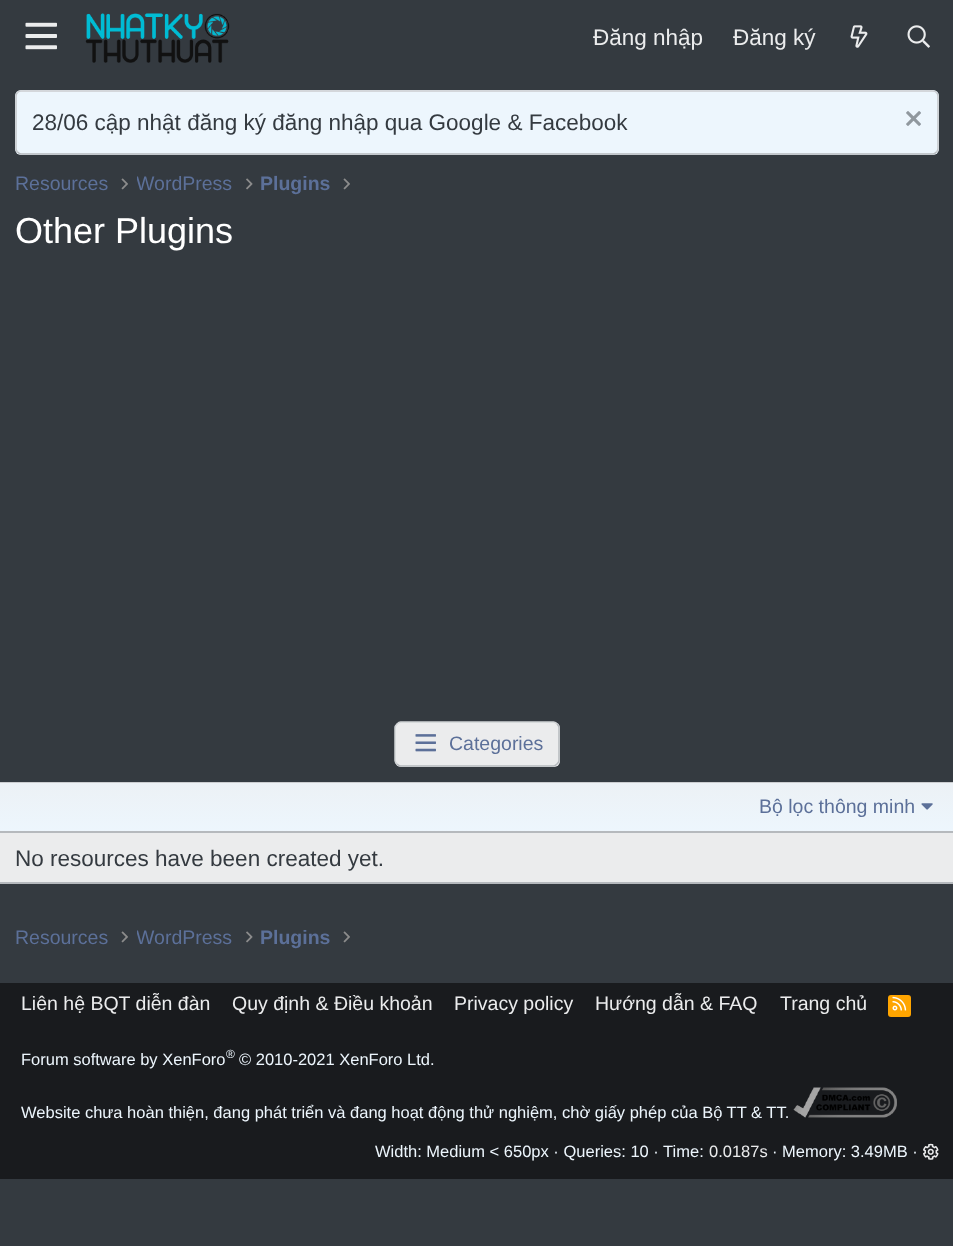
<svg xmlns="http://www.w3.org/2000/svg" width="953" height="1246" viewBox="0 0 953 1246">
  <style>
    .t1 { font: 22.5px Liberation Sans; fill: #ebeced; }
    .t2 { font: 22.5px Liberation Sans; fill: #343a40; }
    .t3 { font: 19.5px Liberation Sans; fill: #5c7099; }
    .t4 { font: bold 19.5px Liberation Sans; fill: #5c7099; }
    .t5 { font: 36px Liberation Sans; fill: #fff; }
    .t6 { font: 19.5px Liberation Sans; fill: #ebeced; }
    .t7 { font: 16.5px Liberation Sans; fill: #edf6fd; }
    .t8 { font: 12px Liberation Sans; fill: #edf6fd; }
    .t9 { font: 16.5px Liberation Sans; fill: #ebeced; }
  </style>
  <defs>
    <clipPath id="clip1"><rect x="137" y="170" width="96" height="28"/></clipPath>
    <linearGradient id="g1" gradientUnits="userSpaceOnUse" x1="477" y1="831" x2="477" y2="783"><stop offset="0" stop-color="#edf6fd"/><stop offset="1" stop-color="#ecf1f5"/></linearGradient>
    <clipPath id="clip2"><rect x="137" y="923" width="96" height="30"/></clipPath>
  </defs>
  <rect width="100%" height="100%" fill="#343a40"/>
  <image x="25" y="22" width="32" height="28" href="images/1.png"/>
  <image x="85" y="13" width="145" height="50" href="images/2.png"/>
  <text x="593" y="45" class="t1">Đăng nhập</text>
  <text x="733" y="45" class="t1">Đăng ký</text>
  <image x="850" y="25" width="18" height="23" href="images/3.png"/>
  <image x="907" y="25" width="23" height="23" href="images/4.png"/>
  <rect x="15" y="90" width="924" height="65" rx="6" fill="#edf6fd"/>
  <path d="M17.5 92.5C18.5 91.5 19.5 91 21 91H933C934.5 91 935.5 91.5 936.5 92.5" fill="none" stroke="#cbcdd0" stroke-width="1.5"/>
  <path d="M936.5 92.5C937.5 93.5 938 94.5 938 96V148.5C938 150 937.5 151 936.5 152" fill="none" stroke="#c3c6c9" stroke-width="1.5"/>
  <path d="M936.5 152C935.5 153 934.5 154 933 154H21C19.5 154 18.5 153 17.5 152" fill="none" stroke="#b5b9bd" stroke-width="1.5"/>
  <path d="M17.5 152C16.5 151 16 150 16 148.5V96C16 94.5 16.5 93.5 17.5 92.5" fill="none" stroke="#c3c6c9" stroke-width="1.5"/>
  <text x="32" y="130" class="t2">28/06 cập nhật đăng ký đăng nhập qua Google &amp; Facebook</text>
  <image x="906" y="111" width="15" height="15" href="images/5.png"/>
  <text x="15" y="190" class="t3">Resources</text>
  <image x="121" y="178" width="7" height="12" href="images/6.png"/>
  <g clip-path="url(#clip1)">
    <text x="136" y="190" class="t3">WordPress</text>
  </g>
  <image x="246" y="178" width="7" height="12" href="images/7.png"/>
  <text x="260" y="190" class="t4">Plugins</text>
  <image x="343" y="178" width="7" height="12" href="images/6.png"/>
  <text x="15" y="243" class="t5">Other Plugins</text>
  <rect x="395" y="722" width="165" height="45" rx="6" fill="#ebeced"/>
  <path d="M557 724C558 725 559 726 559 727.5V760.5C559 762 558 763 557 764C556 765 555 766 553.5 766H400.5C399 766 398 765 397 764" fill="none" stroke="#b5b9bd" stroke-width="1.5"/>
  <path d="M397 764C396 763 395 762 395 760.5V727.5C395 726 396 725 397 724C398 723 399 722 400.5 722H553.5C555 722 556 723 557 724" fill="none" stroke="#d0d3d5" stroke-width="1.5"/>
  <image x="415" y="734" width="21" height="18" href="images/8.png"/>
  <text x="449" y="750" class="t3">Categories</text>
  <rect x="0" y="833" width="953" height="49" fill="#ebeced"/>
  <rect x="0" y="782" width="953" height="1" fill="#cbcdd0"/>
  <rect x="0" y="882" width="953" height="2" fill="#b5b9bd"/>
  <rect x="0" y="783" width="953" height="48" fill="url(#g1)"/>
  <rect x="0" y="831" width="953" height="2" fill="#b5b9bd"/>
  <text x="759" y="813" class="t3">Bộ lọc thông minh</text>
  <image x="921" y="803" width="12" height="7" href="images/9.png"/>
  <text x="15" y="866" class="t2">No resources have been created yet.</text>
  <text x="15" y="944" class="t3">Resources</text>
  <image x="121" y="931" width="7" height="12" href="images/6.png"/>
  <g clip-path="url(#clip2)">
    <text x="136" y="944" class="t3">WordPress</text>
  </g>
  <image x="246" y="931" width="7" height="12" href="images/7.png"/>
  <text x="260" y="944" class="t4">Plugins</text>
  <image x="343" y="931" width="7" height="12" href="images/6.png"/>
  <rect x="0" y="983" width="953" height="196" fill="#191b1e"/>
  <text x="21" y="1010" class="t6">Liên hệ BQT diễn đàn</text>
  <text x="232" y="1010" class="t6">Quy định &amp; Điều khoản</text>
  <text x="454" y="1010" class="t6">Privacy policy</text>
  <text x="595" y="1010" class="t6">Hướng dẫn &amp; FAQ</text>
  <text x="780" y="1010" class="t6">Trang chủ</text>
  <rect x="888" y="995" width="23" height="22" rx="3" fill="#ffa500"/>
  <image x="892" y="996" width="15" height="15" href="images/10.png"/>
  <text x="21" y="1065" class="t7">Forum software by XenForo</text>
  <text x="226" y="1058" class="t8">®</text>
  <text x="239" y="1065" class="t7">© 2010-2021 XenForo Ltd.</text>
  <text x="21" y="1118" class="t7">Website chưa hoàn thiện, đang phát triển và đang hoạt động thử nghiệm, chờ giấy phép của Bộ TT &amp; TT.</text>
  <image x="793" y="1087" width="104" height="31" href="images/11.png"/>
  <text x="375" y="1157" class="t7">Width: Medium &lt; 650px · Queries: 10 · Time:</text>
  <text x="709" y="1157" class="t9">0.0187s</text>
  <text x="772" y="1157" class="t7">· Memory: 3.49MB ·</text>
  <image x="923" y="1143" width="16" height="17" href="images/12.png"/>
</svg>
